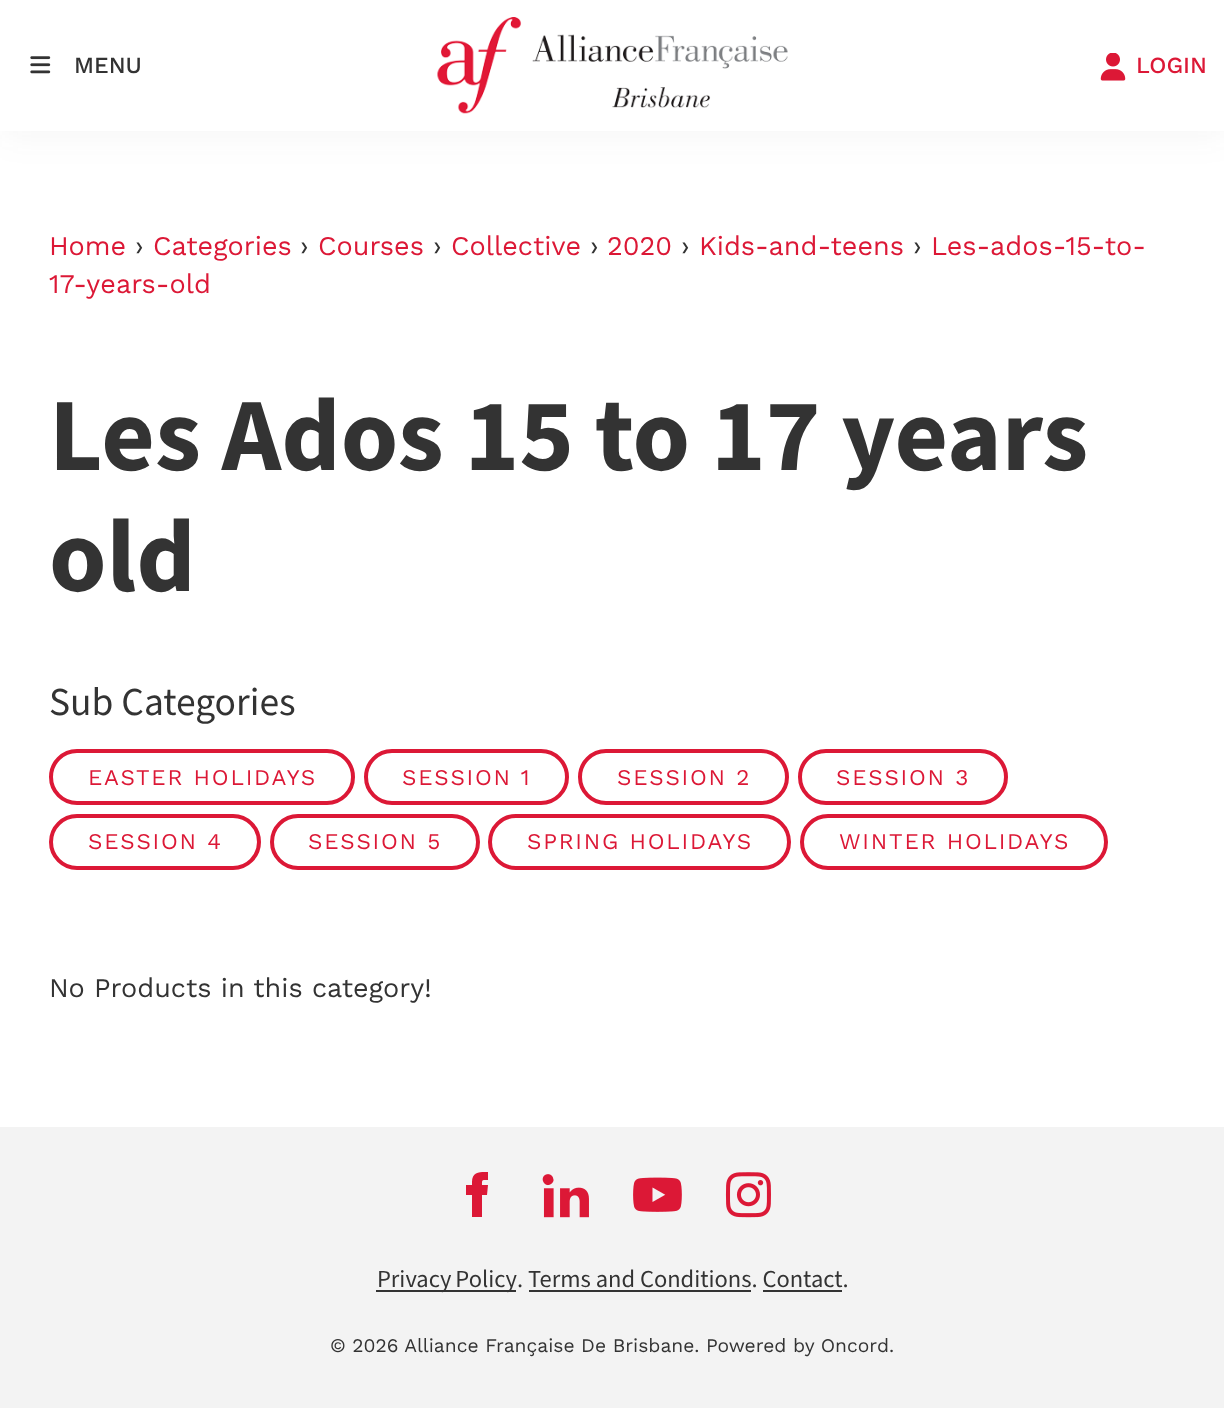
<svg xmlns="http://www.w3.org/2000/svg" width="1224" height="1408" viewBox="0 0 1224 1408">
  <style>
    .t1 { font: 500 23px Work Sans; fill: #333; }
    .t2 { font: 500 23px Work Sans; fill: #dc1836; }
    .t3 { font: 27px Work Sans; fill: #dc1836; }
    .t4 { font: 27px Work Sans; fill: #333; }
    .t5 { font: bold 103.75px Mada; fill: #333; }
    .t6 { font: 39.5px Mada; fill: #333; }
    .t7 { font: 22.5px Work Sans; letter-spacing: 1.75px; fill: #dc1836; }
    .t8 { font: 24.5px Mada; fill: #333; }
    .t9 { font: 19.25px Work Sans; fill: #333; }
  </style>
  <rect width="100%" height="100%" fill="#fff"/>
  <rect x="2" y="4" width="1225" height="131" fill="#3333330d" filter="blur(17.5px)"/>
  <rect x="0" y="0" width="1224" height="131" fill="#fff"/>
  <image x="30" y="56" width="21" height="18" href="images/1.png"/>
  <text x="74" y="73" class="t1">MENU</text>
  <image x="437" y="17" width="351" height="97" href="images/2.png"/>
  <image x="1100" y="53" width="26" height="28" href="images/3.png"/>
  <text x="1136" y="73" class="t2">LOGIN</text>
  <text x="49" y="255" class="t3">Home</text>
  <text x="135" y="255" class="t4">›</text>
  <text x="153" y="255" class="t3">Categories</text>
  <text x="300" y="255" class="t4">›</text>
  <text x="318" y="255" class="t3">Courses</text>
  <text x="433" y="255" class="t4">›</text>
  <text x="451" y="255" class="t3">Collective</text>
  <text x="590" y="255" class="t4">›</text>
  <text x="607" y="255" class="t3">2020</text>
  <text x="681" y="255" class="t4">›</text>
  <text x="699" y="255" class="t3">Kids-and-teens</text>
  <text x="913" y="255" class="t4">›</text>
  <text x="931" y="255" class="t3">Les-ados-15-to-</text>
  <text x="49" y="293" class="t3">17-years-old</text>
  <text x="49" y="470" class="t5">Les Ados 15 to 17 years</text>
  <text x="49" y="591" class="t5">old</text>
  <text x="49" y="715" class="t6">Sub Categories</text>
  <rect x="51" y="751" width="302" height="52" rx="26" fill="none" stroke="#dc1836" stroke-width="4"/>
  <text x="88" y="785" class="t7">EASTER HOLIDAYS</text>
  <rect x="366" y="751" width="201" height="52" rx="26" fill="none" stroke="#dc1836" stroke-width="4"/>
  <text x="402" y="785" class="t7">SESSION 1</text>
  <rect x="580" y="751" width="207" height="52" rx="26" fill="none" stroke="#dc1836" stroke-width="4"/>
  <text x="617" y="785" class="t7">SESSION 2</text>
  <rect x="800" y="751" width="206" height="52" rx="26" fill="none" stroke="#dc1836" stroke-width="4"/>
  <text x="836" y="785" class="t7">SESSION 3</text>
  <rect x="51" y="816" width="208" height="52" rx="26" fill="none" stroke="#dc1836" stroke-width="4"/>
  <text x="88" y="849" class="t7">SESSION 4</text>
  <rect x="272" y="816" width="206" height="52" rx="26" fill="none" stroke="#dc1836" stroke-width="4"/>
  <text x="308" y="849" class="t7">SESSION 5</text>
  <rect x="490" y="816" width="299" height="52" rx="26" fill="none" stroke="#dc1836" stroke-width="4"/>
  <text x="527" y="849" class="t7">SPRING HOLIDAYS</text>
  <rect x="802" y="816" width="304" height="52" rx="26" fill="none" stroke="#dc1836" stroke-width="4"/>
  <text x="839" y="849" class="t7">WINTER HOLIDAYS</text>
  <text x="49" y="997" class="t4">No Products in this category!</text>
  <rect x="0" y="1127" width="1224" height="281" fill="#f3f3f3"/>
  <path d="M472 1185H466V1195H472V1217H482V1195H487L488 1185H482C482 1179 482 1180 488 1180V1172C481 1172 472 1171 472 1182Z" fill="#dc1836"/>
  <image x="542" y="1174" width="47" height="44" href="images/4.png"/>
  <image x="633" y="1177" width="49" height="35" href="images/5.png"/>
  <image x="725" y="1172" width="46" height="46" href="images/6.png"/>
  <rect x="376" y="1290" width="140" height="2" fill="#333"/>
  <text x="377" y="1287" word-spacing="-1" class="t8">Privacy Policy</text>
  <text x="517" y="1287" class="t8">. Terms and Conditions. Contact.</text>
  <rect x="529" y="1290" width="222" height="2" fill="#333"/>
  <rect x="763" y="1290" width="79" height="2" fill="#333"/>
  <text x="330" y="1352" class="t9">© 2026 Alliance Française De Brisbane. Powered by Oncord.</text>
</svg>
